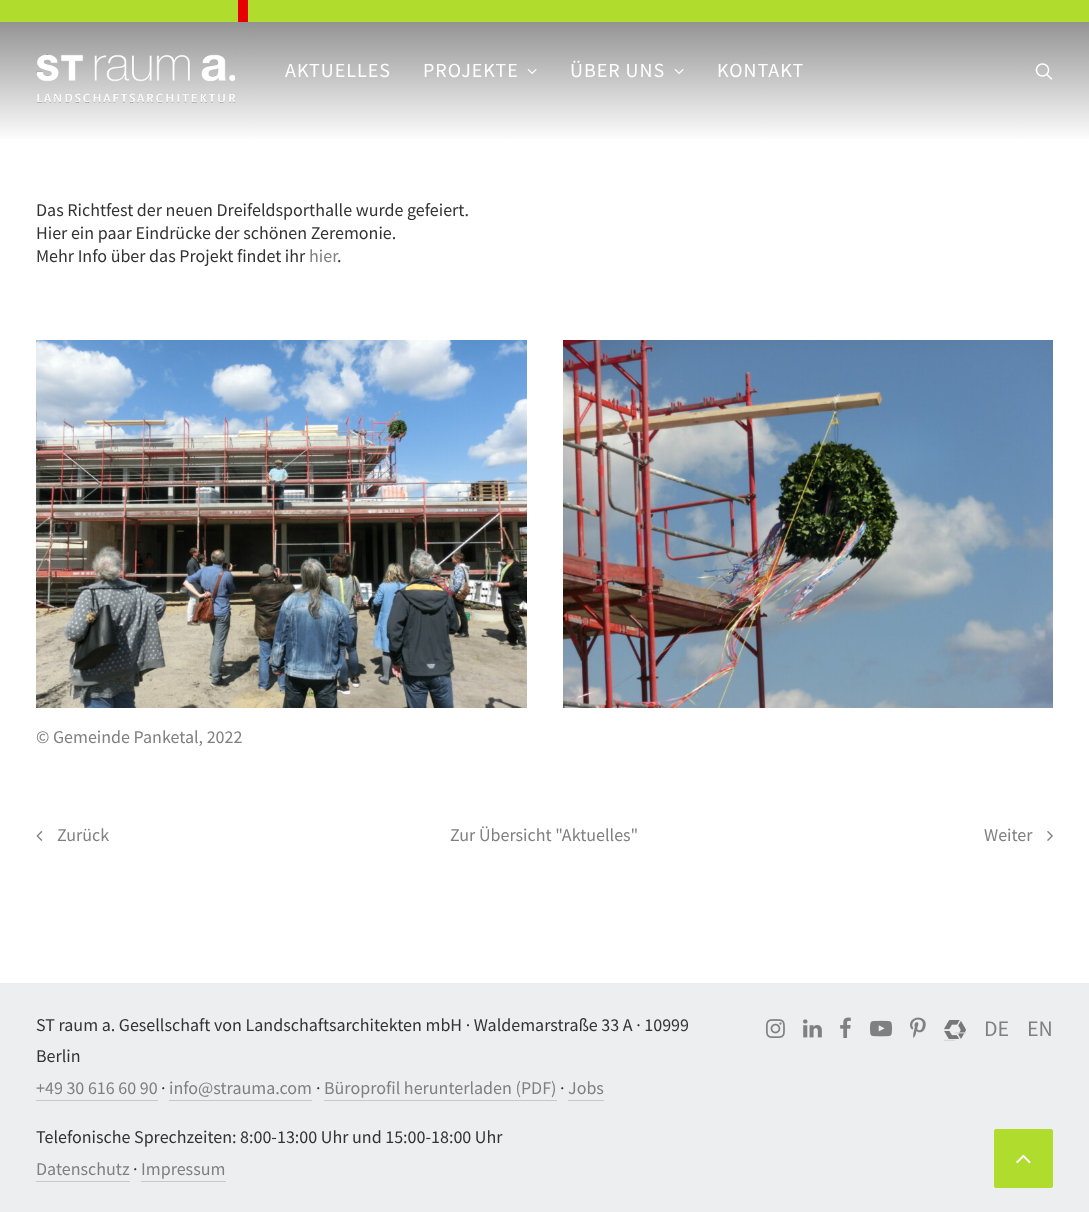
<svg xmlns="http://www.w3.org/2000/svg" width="1089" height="1212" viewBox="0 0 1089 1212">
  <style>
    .t1 { font: 20px Source Sans Pro; letter-spacing: 1px; fill: #fff; }
    .t2 { font: 18px Source Sans Pro; fill: #333; }
    .t3 { font: 18px Source Sans Pro; fill: #808080; }
    .t4 { font: 22px Liberation Serif; fill: #d4d5d6; }
    .t5 { font: 22px Source Sans Pro; fill: #808080; }
  </style>
  <defs>
    <linearGradient id="g1" gradientUnits="userSpaceOnUse" x1="545" y1="0" x2="545" y2="142"><stop offset="0" stop-color="#808080"/><stop offset="1" stop-color="#fff"/></linearGradient>
  </defs>
  <rect width="100%" height="100%" fill="#fff"/>
  <rect x="0" y="0" width="1089" height="22" fill="#afdc2d"/>
  <rect x="238" y="0" width="10" height="22" fill="#e60003"/>
  <rect x="0" y="22" width="1089" height="117" fill="url(#g1)"/>
  <image x="36" y="54" width="200" height="49" href="images/1.png"/>
  <text x="285" y="77" class="t1">AKTUELLES</text>
  <text x="423" y="77" class="t1">PROJEKTE</text>
  <image x="527" y="69" width="10" height="5" href="images/2.png"/>
  <text x="570" y="77" class="t1">ÜBER UNS</text>
  <image x="674" y="69" width="10" height="5" href="images/2.png"/>
  <text x="717" y="77" class="t1">KONTAKT</text>
  <image x="1035" y="63" width="18" height="17" href="images/3.png"/>
  <text x="36" y="216" class="t2">Das Richtfest der neuen Dreifeldsporthalle wurde gefeiert.</text>
  <text x="36" y="239" class="t2">Hier ein paar Eindrücke der schönen Zeremonie.</text>
  <text x="36" y="262" class="t2">Mehr Info über das Projekt findet ihr</text>
  <text x="309" y="262" class="t3">hier</text>
  <text x="337" y="262" class="t2">.</text>
  <image x="563" y="340" width="490" height="368" href="images/4.png"/>
  <image x="36" y="340" width="491" height="368" href="images/5.png"/>
  <text x="36" y="743" class="t3">© Gemeinde Panketal, 2022</text>
  <image x="36" y="831" width="7" height="10" href="images/6.png"/>
  <text x="57" y="841" class="t3">Zurück</text>
  <text x="450" y="841" class="t3">Zur Übersicht "Aktuelles"</text>
  <text x="984" y="841" class="t3">Weiter</text>
  <image x="1047" y="831" width="6" height="10" href="images/7.png"/>
  <rect x="0" y="983" width="1089" height="229" fill="#edeeef"/>
  <text x="36" y="1031" class="t2">ST raum a. Gesellschaft von Landschaftsarchitekten mbH · Waldemarstraße 33 A · 10999</text>
  <text x="36" y="1062" class="t2">Berlin</text>
  <text x="36" y="1094" class="t3">+49 30 616 60 90</text>
  <rect x="36" y="1100" width="122" height="1" fill="#c7c8c9"/>
  <text x="161" y="1094" class="t2">·</text>
  <text x="169" y="1094" class="t3">info@strauma.com</text>
  <rect x="169" y="1100" width="143" height="1" fill="#c7c8c9"/>
  <text x="316" y="1094" class="t2">·</text>
  <text x="324" y="1094" class="t3">Büroprofil herunterladen (PDF)</text>
  <rect x="324" y="1100" width="233" height="1" fill="#c7c8c9"/>
  <text x="560" y="1094" class="t2">·</text>
  <text x="568" y="1094" class="t3">Jobs</text>
  <rect x="568" y="1100" width="36" height="1" fill="#c7c8c9"/>
  <text x="36" y="1143" class="t2">Telefonische Sprechzeiten: 8:00-13:00 Uhr und 15:00-18:00 Uhr</text>
  <text x="36" y="1175" class="t3">Datenschutz</text>
  <rect x="36" y="1181" width="94" height="1" fill="#c7c8c9"/>
  <text x="133" y="1175" class="t2">·</text>
  <text x="141" y="1175" class="t3">Impressum</text>
  <rect x="141" y="1181" width="85" height="1" fill="#c7c8c9"/>
  <image x="766" y="1019" width="19" height="19" href="images/8.png"/>
  <image x="803" y="1019" width="19" height="19" href="images/9.png"/>
  <image x="840" y="1017" width="11" height="21" href="images/10.png"/>
  <image x="870" y="1020" width="22" height="17" href="images/11.png"/>
  <image x="910" y="1017" width="16" height="21" href="images/12.png"/>
  <image x="944" y="1020" width="22" height="19" href="images/13.png"/>
  <text x="944" y="1038" class="t4">_–</text>
  <text x="984" y="1036" class="t5">DE</text>
  <text x="1027" y="1036" class="t5">EN</text>
  <rect x="994.5" y="1129.5" width="58" height="58" rx="1.5" fill="#afdc2d" stroke="#afdc2d"/>
  <image x="1016" y="1154" width="15" height="10" href="images/14.png"/>
</svg>
